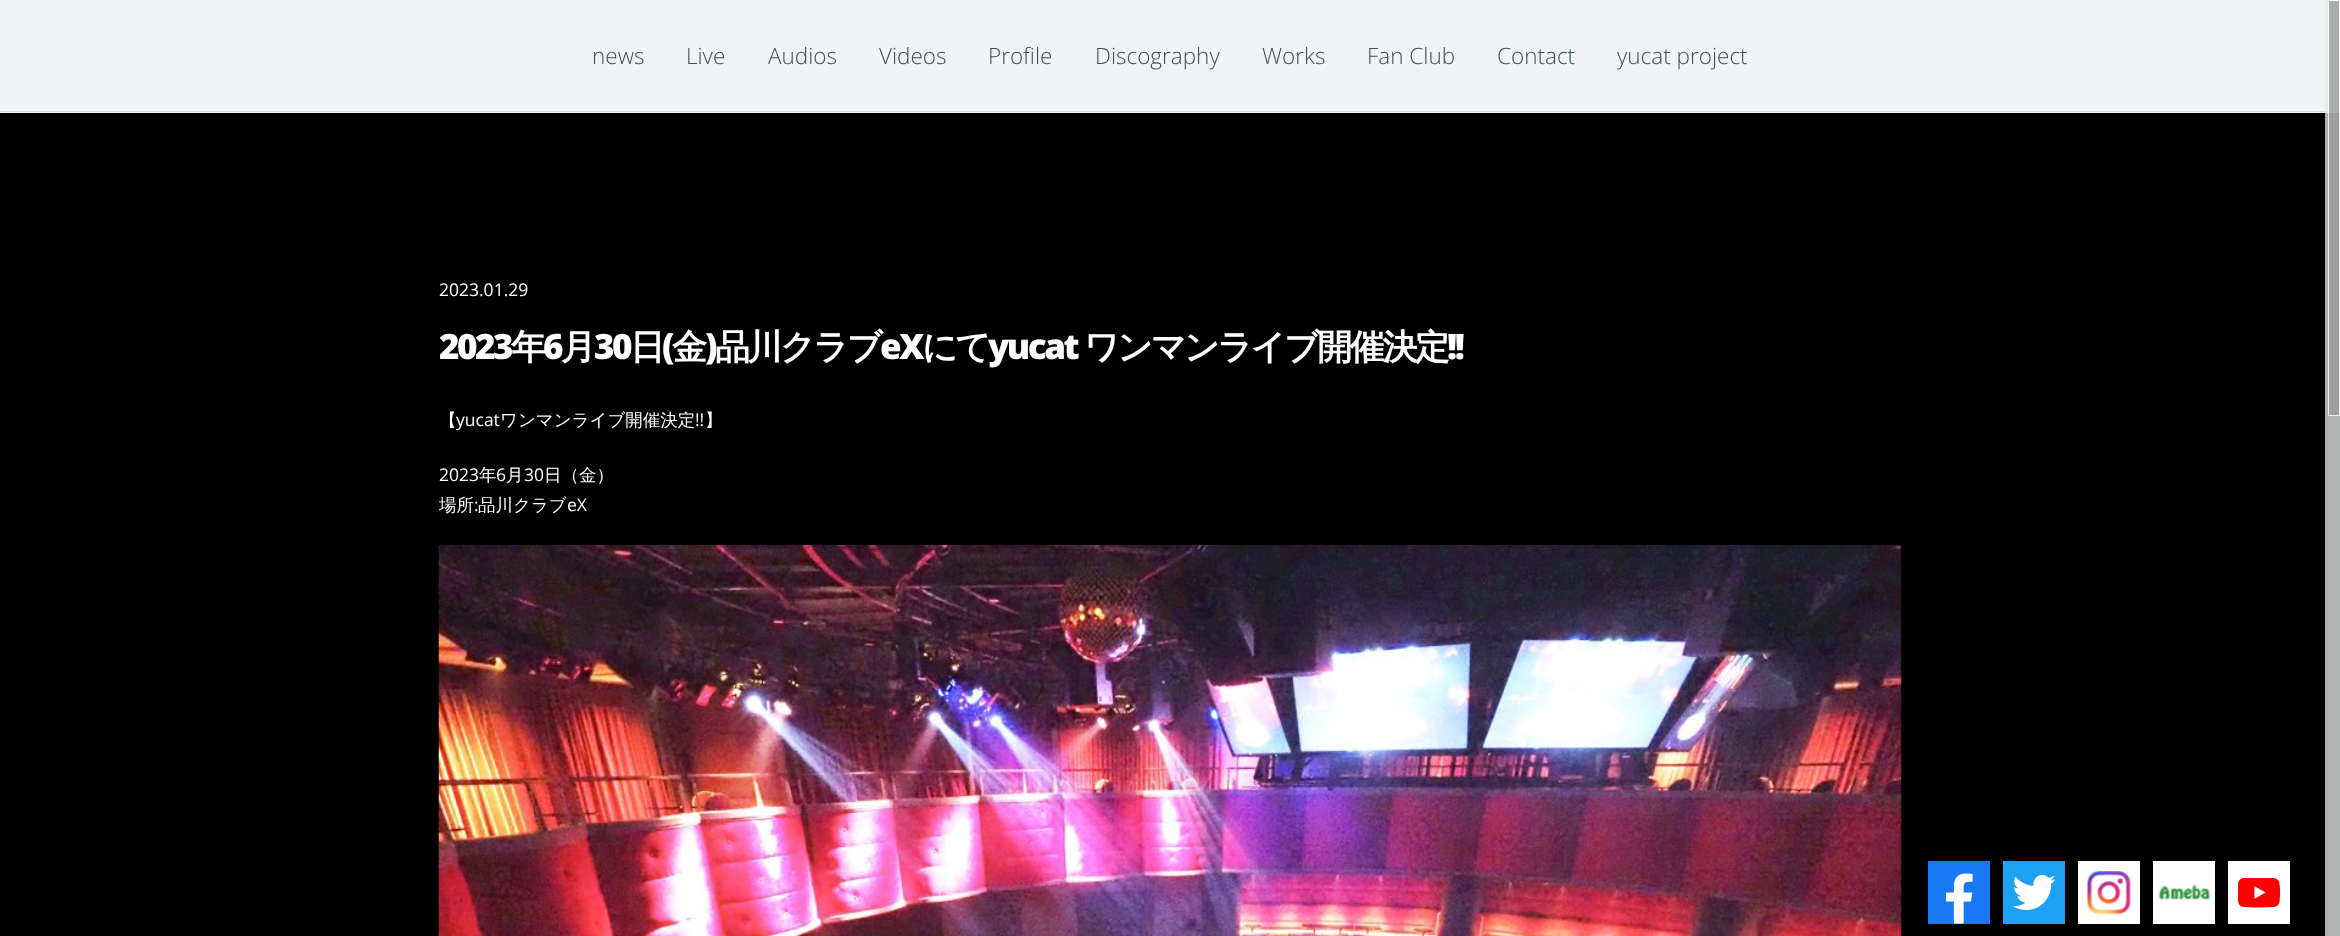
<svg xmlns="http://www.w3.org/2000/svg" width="2340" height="936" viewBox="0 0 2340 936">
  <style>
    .t1 { font: 300 22.5px Open Sans; fill: #3d5054; }
    .t2 { font: 17.5px Open Sans; fill: #fff; }
    .t3 { font: 800 35px Open Sans; letter-spacing: -2.5px; fill: #fff; }
    .t4 { font: bold 35px WenQuanYi Zen Hei; letter-spacing: -2.5px; fill: #fff; }
    .t5 { font: 500 17.5px WenQuanYi Zen Hei; fill: #fff; }
  </style>
  <rect width="100%" height="100%" fill="#000"/>
  <rect x="2325" y="113" width="15" height="823" fill="#b0b3b2"/>
  <rect x="2329" y="113" width="10" height="302" fill="#9e9f9f"/>
  <rect x="0" y="0" width="2325" height="113" fill="#f1f3f4"/>
  <rect x="2325" y="0" width="15" height="113" fill="#e8ebea"/>
  <rect x="2329" y="1" width="10" height="112" fill="#abacac"/>
  <rect x="0" y="111" width="2325" height="1" fill="#d7dbdc"/>
  <rect x="2325" y="111" width="15" height="1" fill="#e2e6e4"/>
  <rect x="2329" y="111" width="10" height="1" fill="#aaabaa"/>
  <text x="592" y="64" class="t1">news</text>
  <text x="686" y="64" class="t1">Live</text>
  <text x="768" y="64" class="t1">Audios</text>
  <text x="879" y="64" class="t1">Videos</text>
  <text x="988" y="64" class="t1">Profile</text>
  <text x="1095" y="64" class="t1">Discography</text>
  <text x="1262" y="64" class="t1">Works</text>
  <text x="1367" y="64" class="t1">Fan Club</text>
  <text x="1497" y="64" class="t1">Contact</text>
  <text x="1617" y="64" class="t1">yucat project</text>
  <rect x="2328.5" y="0.5" width="11" height="415" fill="none" stroke="#ffffffc4"/>
  <text x="439" y="296" class="t2">2023.01.29</text>
  <text x="439" y="359" class="t3">2023</text>
  <text x="511" y="359" class="t4">年</text>
  <text x="543" y="359" class="t3">6</text>
  <text x="561" y="359" class="t4">月</text>
  <text x="594" y="359" class="t3">30</text>
  <text x="630" y="359" class="t4">日</text>
  <text x="662" y="359" class="t3">(</text>
  <text x="672" y="359" class="t4">金</text>
  <text x="705" y="359" class="t3">)</text>
  <text x="715" y="359" class="t4">品川クラブ</text>
  <text x="880" y="359" class="t3">eX</text>
  <text x="922" y="359" class="t4">にて</text>
  <text x="988" y="359" class="t3">yucat</text>
  <text x="1084" y="359" class="t4">ワンマンライブ開催決定</text>
  <text x="1447" y="359" class="t3">!!</text>
  <text x="439" y="426" class="t5">【</text>
  <text x="456" y="426" class="t2">yucat</text>
  <text x="500" y="426" class="t5">ワンマンライブ開催決定</text>
  <text x="695" y="426" class="t2">!!</text>
  <text x="705" y="426" class="t5">】</text>
  <text x="439" y="481" class="t2">2023</text>
  <text x="479" y="481" class="t5">年</text>
  <text x="496" y="481" class="t2">6</text>
  <text x="506" y="481" class="t5">月</text>
  <text x="524" y="481" class="t2">30</text>
  <text x="544" y="481" class="t5">日（金）</text>
  <text x="439" y="511" class="t5">場所</text>
  <text x="474" y="511" class="t2">:</text>
  <text x="478" y="511" class="t5">品川クラブ</text>
  <text x="567" y="511" class="t2">eX</text>
  <image x="438" y="545" width="1464" height="391" href="images/1.png"/>
  <rect x="1928" y="861" width="62" height="63" fill="#1877f2"/>
  <image x="1945" y="873" width="28" height="51" href="images/2.png"/>
  <rect x="2003" y="861" width="62" height="63" fill="#1da1f2"/>
  <image x="2013" y="875" width="42" height="35" href="images/3.png"/>
  <rect x="2078" y="861" width="62" height="63" fill="#fff"/>
  <image x="2087" y="871" width="44" height="44" href="images/4.png"/>
  <rect x="2153" y="861" width="62" height="63" fill="#fff"/>
  <image x="2158" y="884" width="53" height="17" href="images/5.png"/>
  <rect x="2228" y="861" width="62" height="63" fill="#fff"/>
  <image x="2238" y="878" width="42" height="30" href="images/6.png"/>
</svg>
